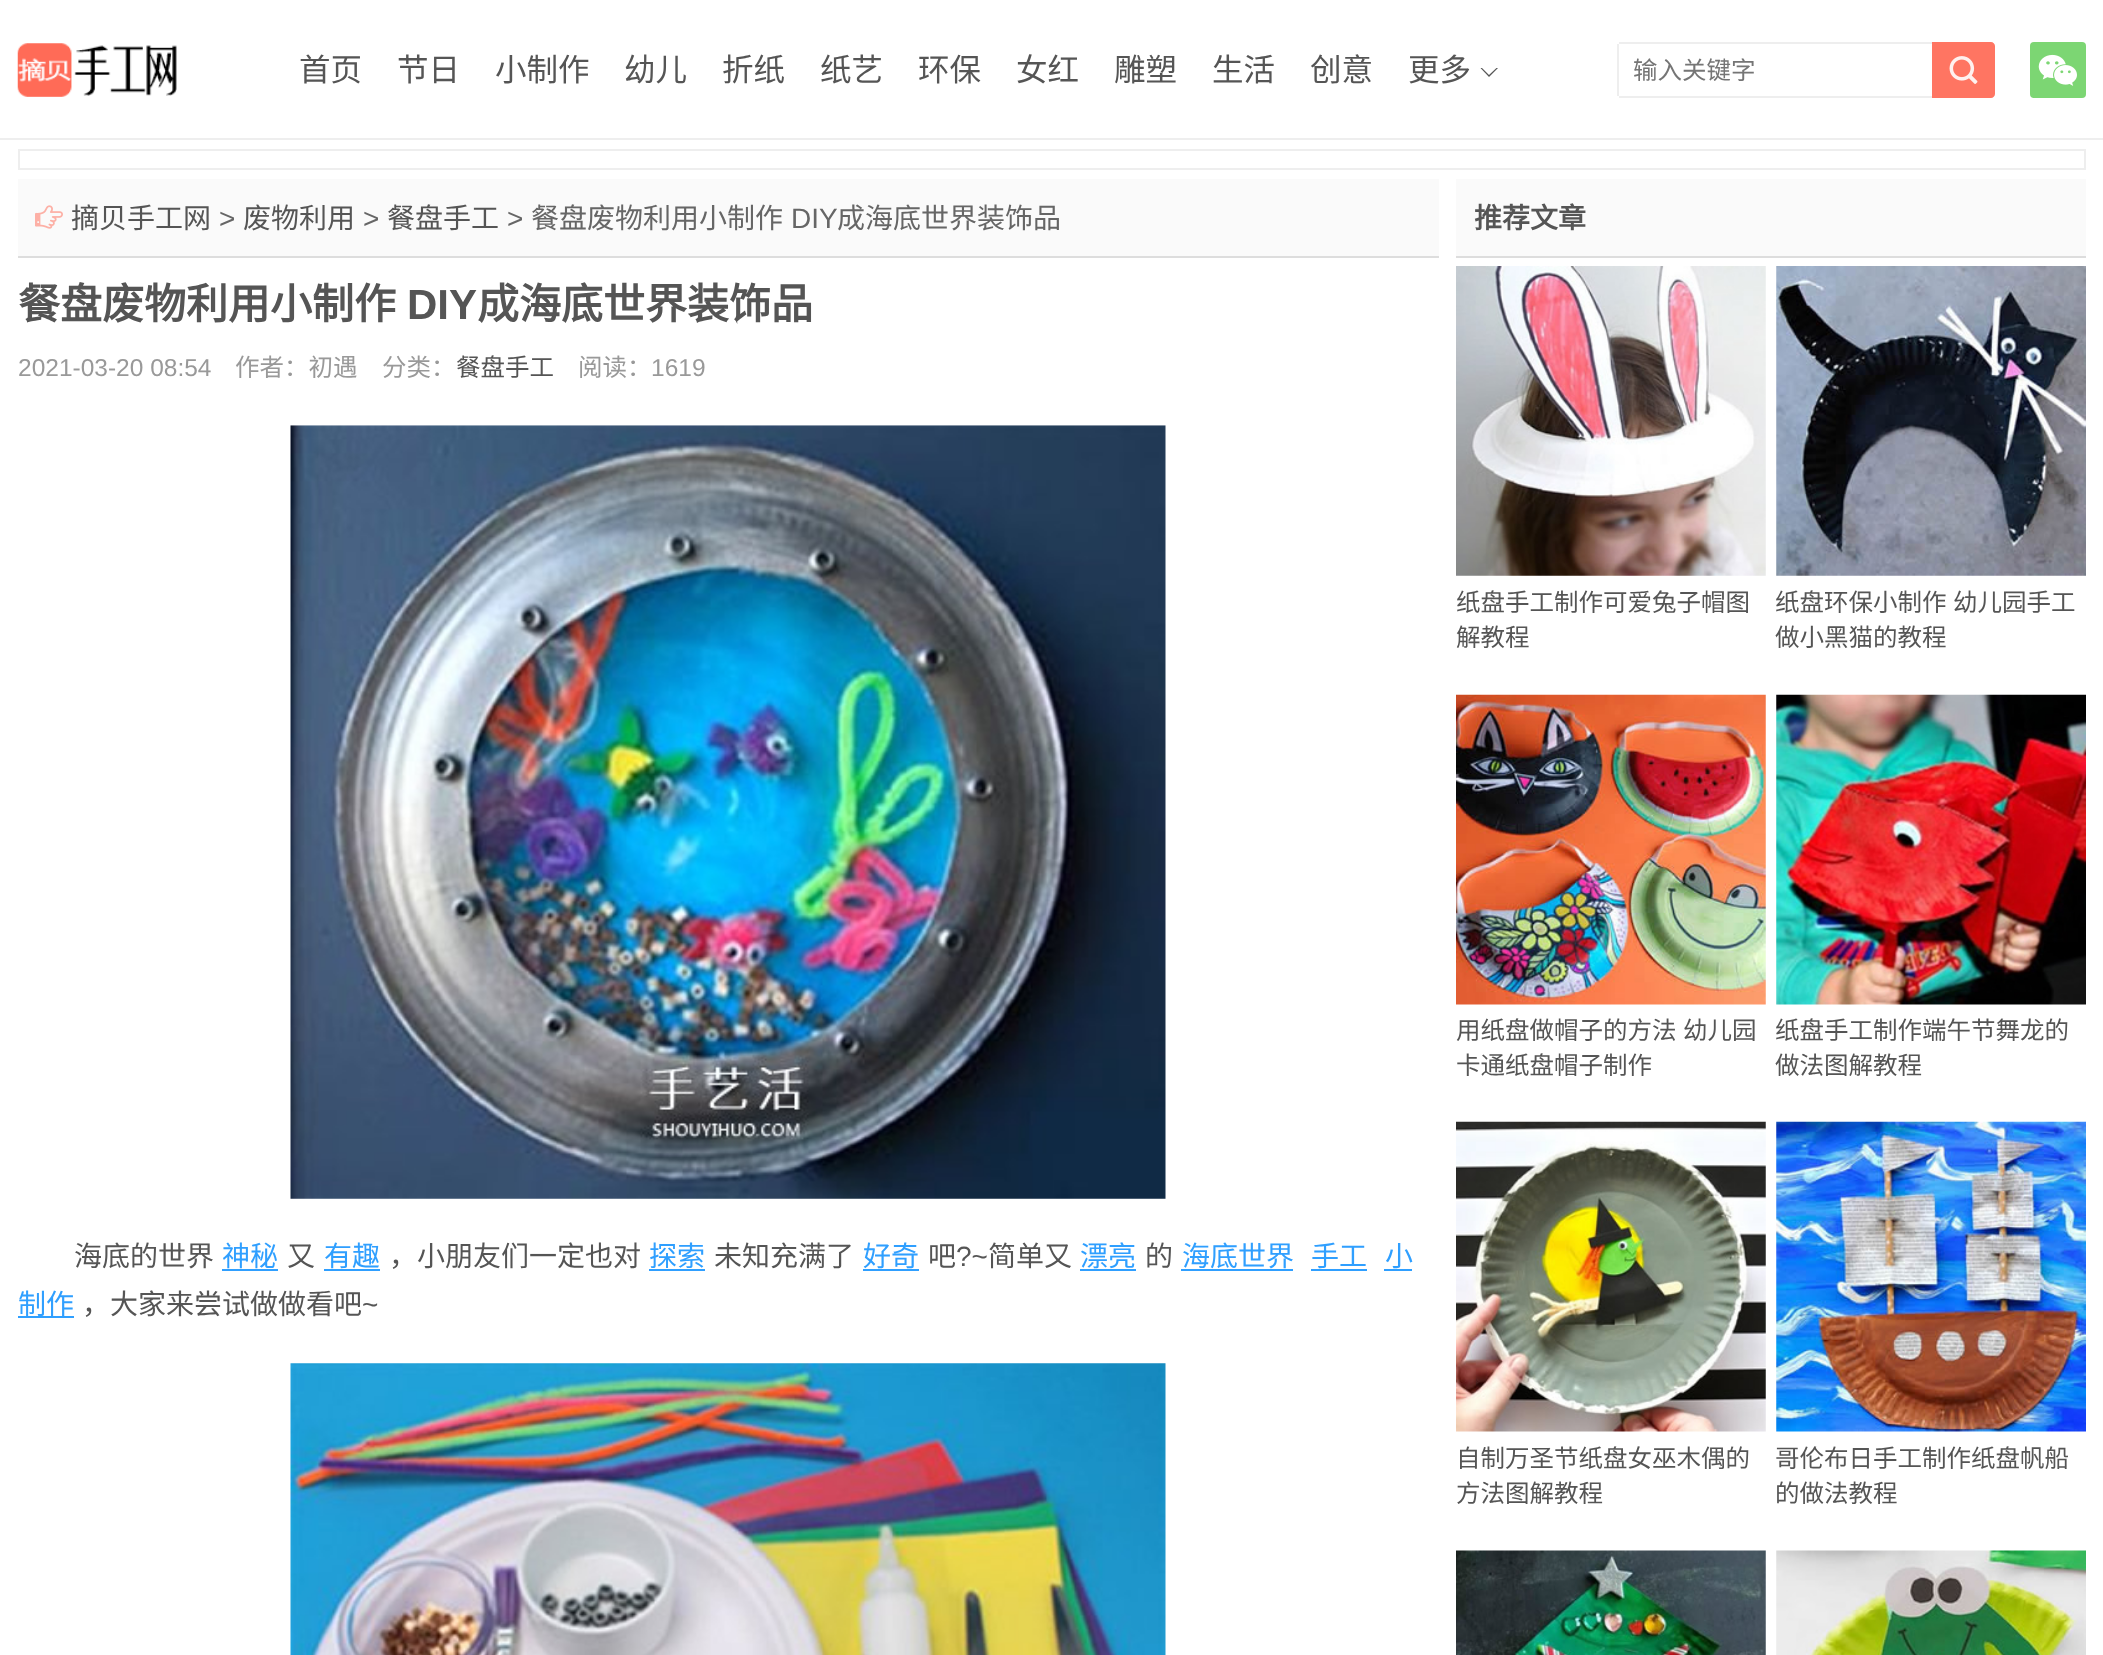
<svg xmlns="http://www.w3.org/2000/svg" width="2103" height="1655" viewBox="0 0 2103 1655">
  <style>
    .t1 { font: 31.5px Noto Sans CJK SC; fill: #555; }
    .t2 { font: 24.5px Noto Sans CJK SC; fill: #757575; }
    .t3 { font: 28px Noto Sans CJK SC; fill: #555; }
    .t4 { font: 28px Liberation Sans; fill: #666; }
    .t5 { font: 28px Noto Sans CJK SC; fill: #666; }
    .t6 { font: bold 42px Noto Sans CJK SC; fill: #555; }
    .t7 { font: bold 42px Liberation Sans; fill: #555; }
    .t8 { font: 24.5px Liberation Sans; fill: #999; }
    .t9 { font: 24.5px Noto Sans CJK SC; fill: #999; }
    .t10 { font: 24.5px Noto Sans CJK SC; fill: #555; }
    .t11 { font: 28px Noto Sans CJK SC; fill: #2f9fff; }
    .t12 { font: 28px Liberation Sans; fill: #555; }
    .t13 { font: bold 28px Noto Sans CJK SC; fill: #555; }
  </style>
  <rect width="100%" height="100%" fill="#fff"/>
  <rect x="0" y="138" width="2103" height="2" fill="#eee"/>
  <image x="17" y="43" width="160" height="54" href="images/1.png"/>
  <text x="299" y="81" class="t1">首页</text>
  <text x="397" y="81" class="t1">节日</text>
  <text x="495" y="81" class="t1">小制作</text>
  <text x="624" y="81" class="t1">幼儿</text>
  <text x="722" y="81" class="t1">折纸</text>
  <text x="820" y="81" class="t1">纸艺</text>
  <text x="918" y="81" class="t1">环保</text>
  <text x="1016" y="81" class="t1">女红</text>
  <text x="1114" y="81" class="t1">雕塑</text>
  <text x="1212" y="81" class="t1">生活</text>
  <text x="1310" y="81" class="t1">创意</text>
  <text x="1408" y="81" class="t1">更多</text>
  <path d="M1480.5 68H1498L1489 77Z" fill="#555"/>
  <path d="M1480.5 66.5H1498L1489 75Z" fill="#fff"/>
  <rect x="1619" y="42" width="313" height="2" fill="#eee"/>
  <rect x="1619" y="96" width="313" height="2" fill="#eee"/>
  <rect x="1617" y="44" width="2" height="52" fill="#eee"/>
  <text x="1633" y="79" class="t2">输入关键字</text>
  <path d="M1932 42H1991C1993 42 1995 44 1995 46V94C1995 96 1993 98 1991 98H1932Z" fill="#ff7562"/>
  <image x="1949" y="56" width="29" height="28" href="images/2.png"/>
  <rect x="2030" y="42" width="56" height="56" rx="4" fill="#7cd673"/>
  <image x="2038" y="54" width="39" height="32" href="images/3.png"/>
  <rect x="19" y="150" width="2066" height="19" fill="none" stroke="#eee" stroke-width="2"/>
  <rect x="18" y="179" width="1421" height="77" fill="#fafafa"/>
  <rect x="18" y="256" width="1421" height="2" fill="#ddd"/>
  <image x="35" y="205" width="28" height="24" href="images/4.png"/>
  <text x="71" y="228" class="t3">摘贝手工网</text>
  <text x="219" y="228" class="t4">&gt;</text>
  <text x="243" y="228" class="t3">废物利用</text>
  <text x="363" y="228" class="t4">&gt;</text>
  <text x="387" y="228" class="t3">餐盘手工</text>
  <text x="507" y="228" class="t4">&gt;</text>
  <text x="531" y="228" class="t5">餐盘废物利用小制作</text>
  <text x="791" y="228" class="t4">DIY</text>
  <text x="837" y="228" class="t5">成海底世界装饰品</text>
  <text x="18" y="319" class="t6">餐盘废物利用小制作</text>
  <text x="407" y="319" class="t7">DIY</text>
  <text x="477" y="319" class="t6">成海底世界装饰品</text>
  <text x="18" y="376" class="t8">2021-03-20 08:54</text>
  <text x="235" y="376" class="t9">作者：初遇</text>
  <text x="382" y="376" class="t9">分类：</text>
  <text x="456" y="376" class="t10">餐盘手工</text>
  <text x="578" y="376" class="t9">阅读：</text>
  <text x="651" y="376" class="t8">1619</text>
  <image x="290" y="425" width="876" height="774" href="images/5.png"/>
  <text x="74" y="1266" class="t3">海底的世界</text>
  <text x="222" y="1266" class="t11">神秘</text>
  <rect x="222" y="1269" width="56" height="2" fill="#2f9fff"/>
  <text x="287" y="1266" class="t3">又</text>
  <text x="324" y="1266" class="t11">有趣</text>
  <rect x="324" y="1269" width="56" height="2" fill="#2f9fff"/>
  <text x="389" y="1266" class="t3">，小朋友们一定也对</text>
  <text x="649" y="1266" class="t11">探索</text>
  <rect x="649" y="1269" width="56" height="2" fill="#2f9fff"/>
  <text x="714" y="1266" class="t3">未知充满了</text>
  <text x="863" y="1266" class="t11">好奇</text>
  <rect x="863" y="1269" width="56" height="2" fill="#2f9fff"/>
  <text x="928" y="1266" class="t3">吧</text>
  <text x="956" y="1266" class="t12">?~</text>
  <text x="988" y="1266" class="t3">简单又</text>
  <text x="1080" y="1266" class="t11">漂亮</text>
  <rect x="1080" y="1269" width="56" height="2" fill="#2f9fff"/>
  <text x="1145" y="1266" class="t3">的</text>
  <text x="1182" y="1266" class="t11">海底世界</text>
  <rect x="1181" y="1269" width="112" height="2" fill="#2f9fff"/>
  <text x="1311" y="1266" class="t11">手工</text>
  <rect x="1311" y="1269" width="56" height="2" fill="#2f9fff"/>
  <text x="1385" y="1266" class="t11">小</text>
  <rect x="1384" y="1269" width="28" height="2" fill="#2f9fff"/>
  <rect x="18" y="1316" width="56" height="2" fill="#2f9fff"/>
  <text x="18" y="1314" class="t11">制作</text>
  <text x="82" y="1314" class="t3">，大家来尝试做做看吧</text>
  <text x="362" y="1314" class="t12">~</text>
  <image x="290" y="1363" width="876" height="292" href="images/6.png"/>
  <rect x="1456" y="179" width="630" height="77" fill="#fafafa"/>
  <rect x="1456" y="256" width="630" height="2" fill="#ddd"/>
  <text x="1474" y="228" class="t13">推荐文章</text>
  <image x="1456" y="266" width="310" height="310" href="images/7.png"/>
  <text x="1456" y="611" class="t10">纸盘手工制作可爱兔子帽图</text>
  <text x="1456" y="646" class="t10">解教程</text>
  <image x="1776" y="266" width="310" height="310" href="images/8.png"/>
  <text x="1775" y="611" word-spacing="1" class="t10">纸盘环保小制作 幼儿园手工</text>
  <text x="1775" y="646" class="t10">做小黑猫的教程</text>
  <image x="1456" y="694" width="310" height="311" href="images/9.png"/>
  <text x="1456" y="1039" word-spacing="1" class="t10">用纸盘做帽子的方法 幼儿园</text>
  <text x="1456" y="1074" class="t10">卡通纸盘帽子制作</text>
  <image x="1776" y="694" width="310" height="311" href="images/10.png"/>
  <text x="1775" y="1039" class="t10">纸盘手工制作端午节舞龙的</text>
  <text x="1775" y="1074" class="t10">做法图解教程</text>
  <image x="1456" y="1121" width="310" height="311" href="images/11.png"/>
  <text x="1456" y="1467" class="t10">自制万圣节纸盘女巫木偶的</text>
  <text x="1456" y="1502" class="t10">方法图解教程</text>
  <image x="1776" y="1121" width="310" height="311" href="images/12.png"/>
  <text x="1775" y="1467" class="t10">哥伦布日手工制作纸盘帆船</text>
  <text x="1775" y="1502" class="t10">的做法教程</text>
  <image x="1456" y="1550" width="310" height="105" href="images/13.png"/>
  <image x="1776" y="1550" width="310" height="105" href="images/14.png"/>
</svg>
